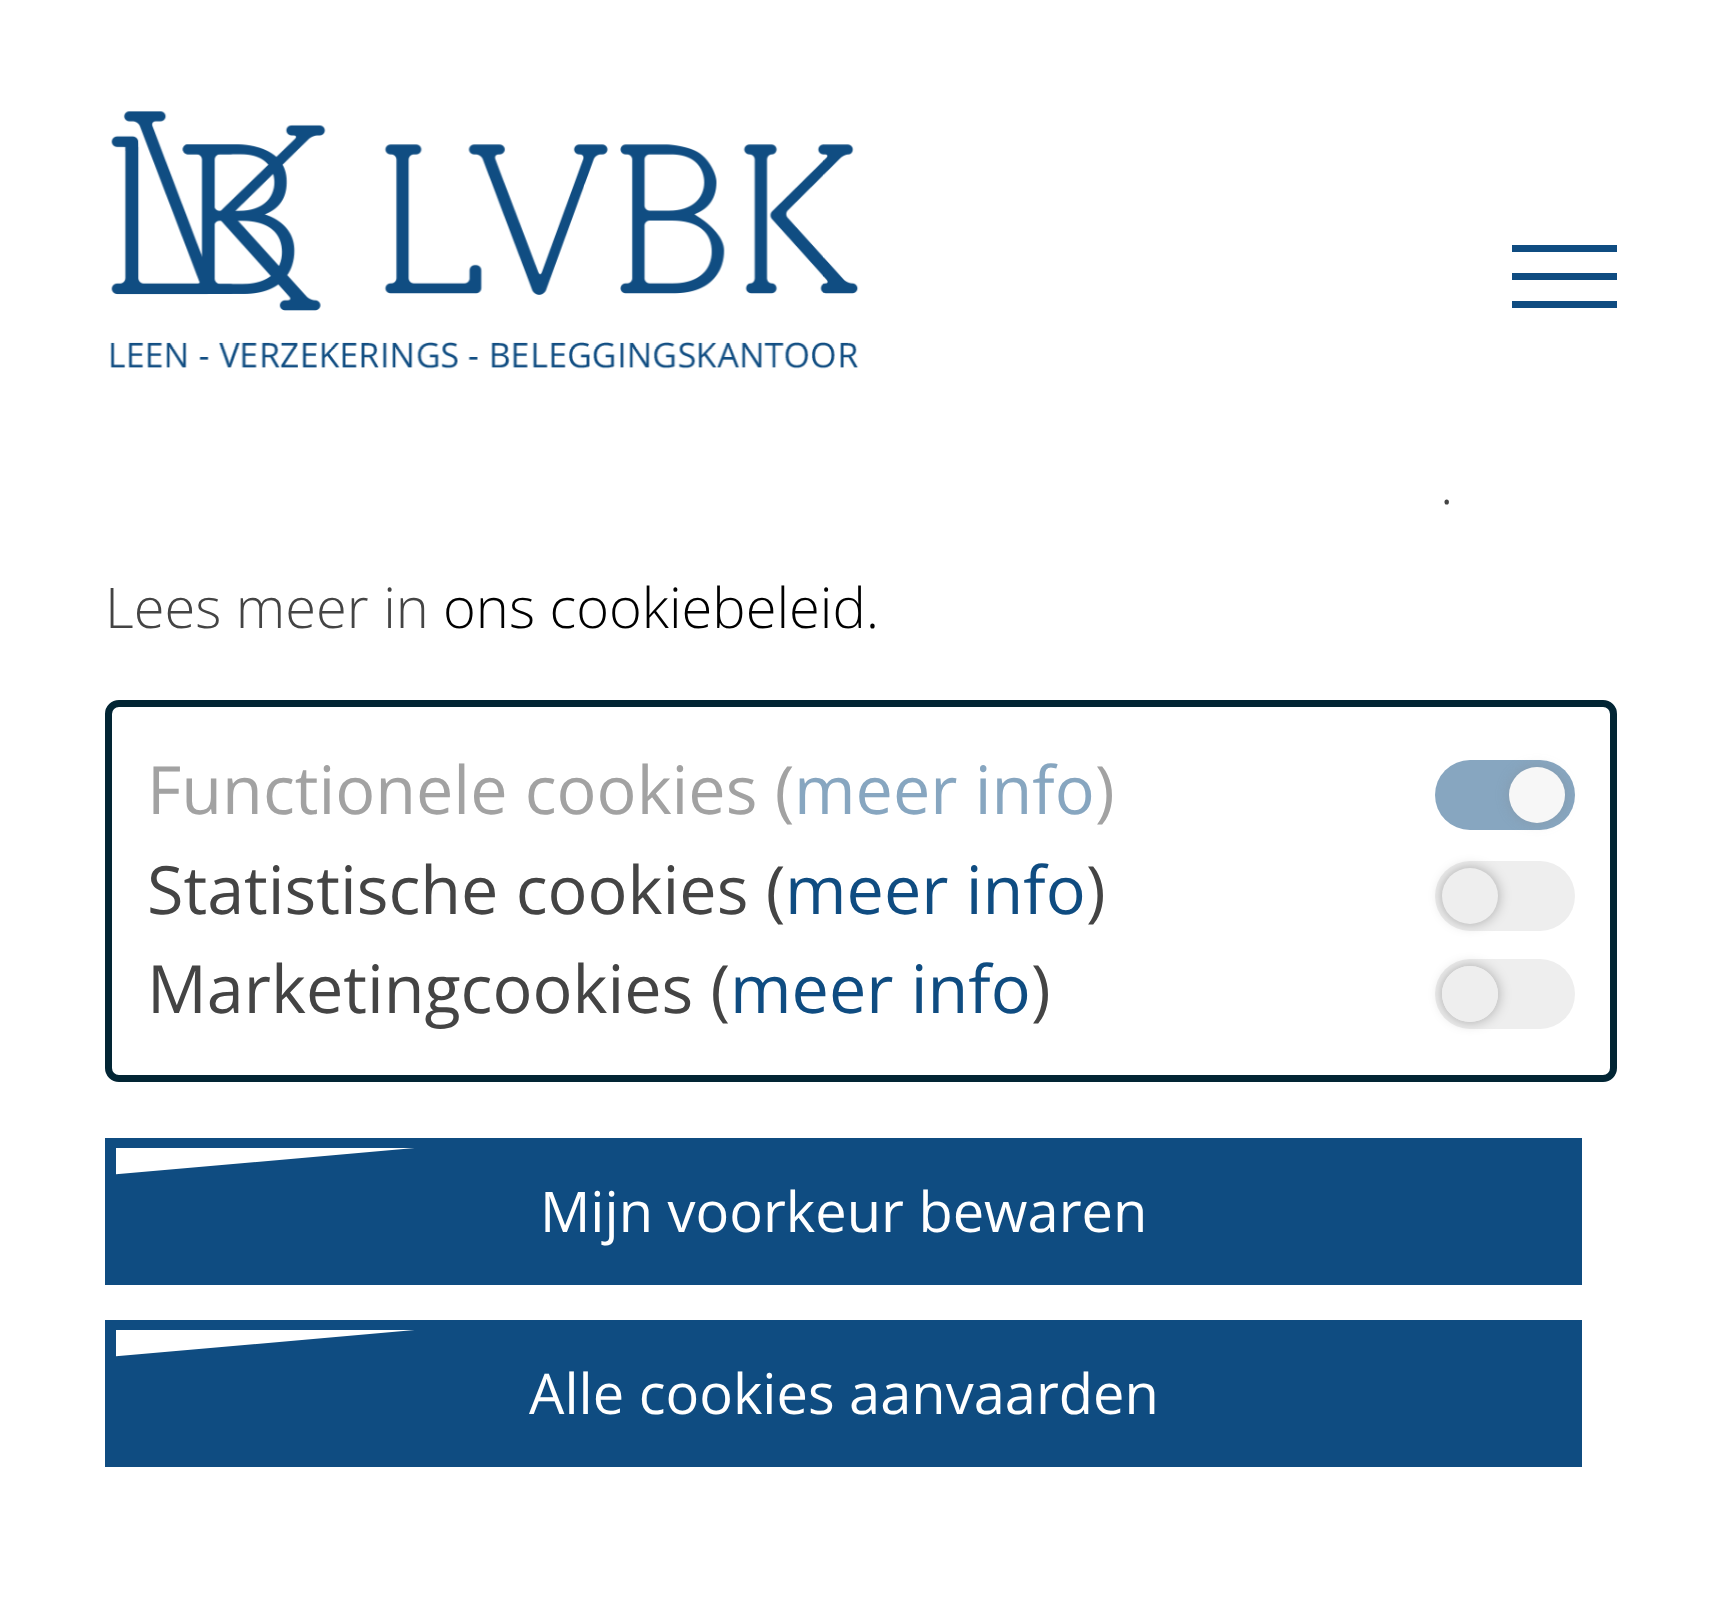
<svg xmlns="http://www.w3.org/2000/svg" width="1721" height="1605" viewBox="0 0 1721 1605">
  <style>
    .t1 { font: 300 56px Open Sans; fill: #444; }
    .t2 { font: 300 56px Open Sans; fill: #000; }
    .t3 { font: 66.5px Open Sans; fill: #a2a2a2; }
    .t4 { font: 66.5px Open Sans; fill: #87a6c0; }
    .t5 { font: 66.5px Open Sans; fill: #444; }
    .t6 { font: 66.5px Open Sans; fill: #0f4c81; }
    .t7 { font: 56px Open Sans; fill: #fff; }
  </style>
  <defs>
    <clipPath id="clip1"><path d="M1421 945H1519V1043H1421ZM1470 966C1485.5 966 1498 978.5 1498 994C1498 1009.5 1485.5 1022 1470 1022C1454.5 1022 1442 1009.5 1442 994C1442 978.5 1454.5 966 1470 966Z" clip-rule="evenodd"/></clipPath>
    <clipPath id="clip2"><rect x="116" y="1148" width="1456" height="126"/></clipPath>
    <clipPath id="clip3"><rect x="116" y="1330" width="1456" height="126"/></clipPath>
  </defs>
  <rect width="100%" height="100%" fill="#fff"/>
  <image x="110" y="111" width="749" height="258" href="images/1.png"/>
  <rect x="1512" y="245" width="105" height="7" fill="#0f4c81"/>
  <rect x="1512" y="273" width="105" height="7" fill="#0f4c81"/>
  <rect x="1512" y="301" width="105" height="7" fill="#0f4c81"/>
  <text x="1440" y="504" class="t1">.</text>
  <text x="105" y="628" class="t1">Lees meer in</text>
  <text x="443" y="628" class="t2">ons cookiebeleid.</text>
  <rect x="108.5" y="703.5" width="1505" height="375" rx="10.5" fill="none" stroke="#022534" stroke-width="7"/>
  <text x="147" y="814" class="t3">Functionele cookies (</text>
  <text x="794" y="814" class="t4">meer info</text>
  <text x="1095" y="814" class="t3">)</text>
  <rect x="1435" y="760" width="140" height="70" rx="35" fill="#87a6c0"/>
  <rect x="1509" y="767" width="56" height="56" rx="28" fill="#8080804d" filter="blur(6.5px)"/>
  <circle cx="1537" cy="795" r="28" fill="#f7f7f7"/>
  <text x="147" y="914" class="t5">Statistische cookies (</text>
  <text x="785" y="914" class="t6">meer info</text>
  <text x="1086" y="914" class="t5">)</text>
  <rect x="1435" y="861" width="140" height="70" rx="35" fill="#eee"/>
  <rect x="1442" y="868" width="56" height="56" rx="28" fill="#0000004d" filter="blur(6.5px)"/>
  <circle cx="1470" cy="896" r="28" fill="#eee"/>
  <text x="147" y="1013" class="t5">Marketingcookies (</text>
  <text x="730" y="1013" class="t6">meer info</text>
  <text x="1031" y="1013" class="t5">)</text>
  <rect x="1435" y="959" width="140" height="70" rx="35" fill="#eee"/>
  <g clip-path="url(#clip1)">
    <rect x="1442" y="966" width="56" height="56" rx="28" fill="#0000004d" filter="blur(6.5px)"/>
  </g>
  <circle cx="1470" cy="994" r="28" fill="#eee"/>
  <rect x="105" y="1138" width="1477" height="147" fill="#0f4c81"/>
  <g clip-path="url(#clip2)">
    <path d="M11 1116L1670 971L1676 1037L17 1183Z" fill="#fff"/>
  </g>
  <text x="540" y="1232" class="t7">Mijn voorkeur bewaren</text>
  <rect x="105" y="1320" width="1477" height="147" fill="#0f4c81"/>
  <g clip-path="url(#clip3)">
    <path d="M11 1298L1670 1153L1676 1219L17 1365Z" fill="#fff"/>
  </g>
  <text x="529" y="1414" class="t7">Alle cookies aanvaarden</text>
</svg>
